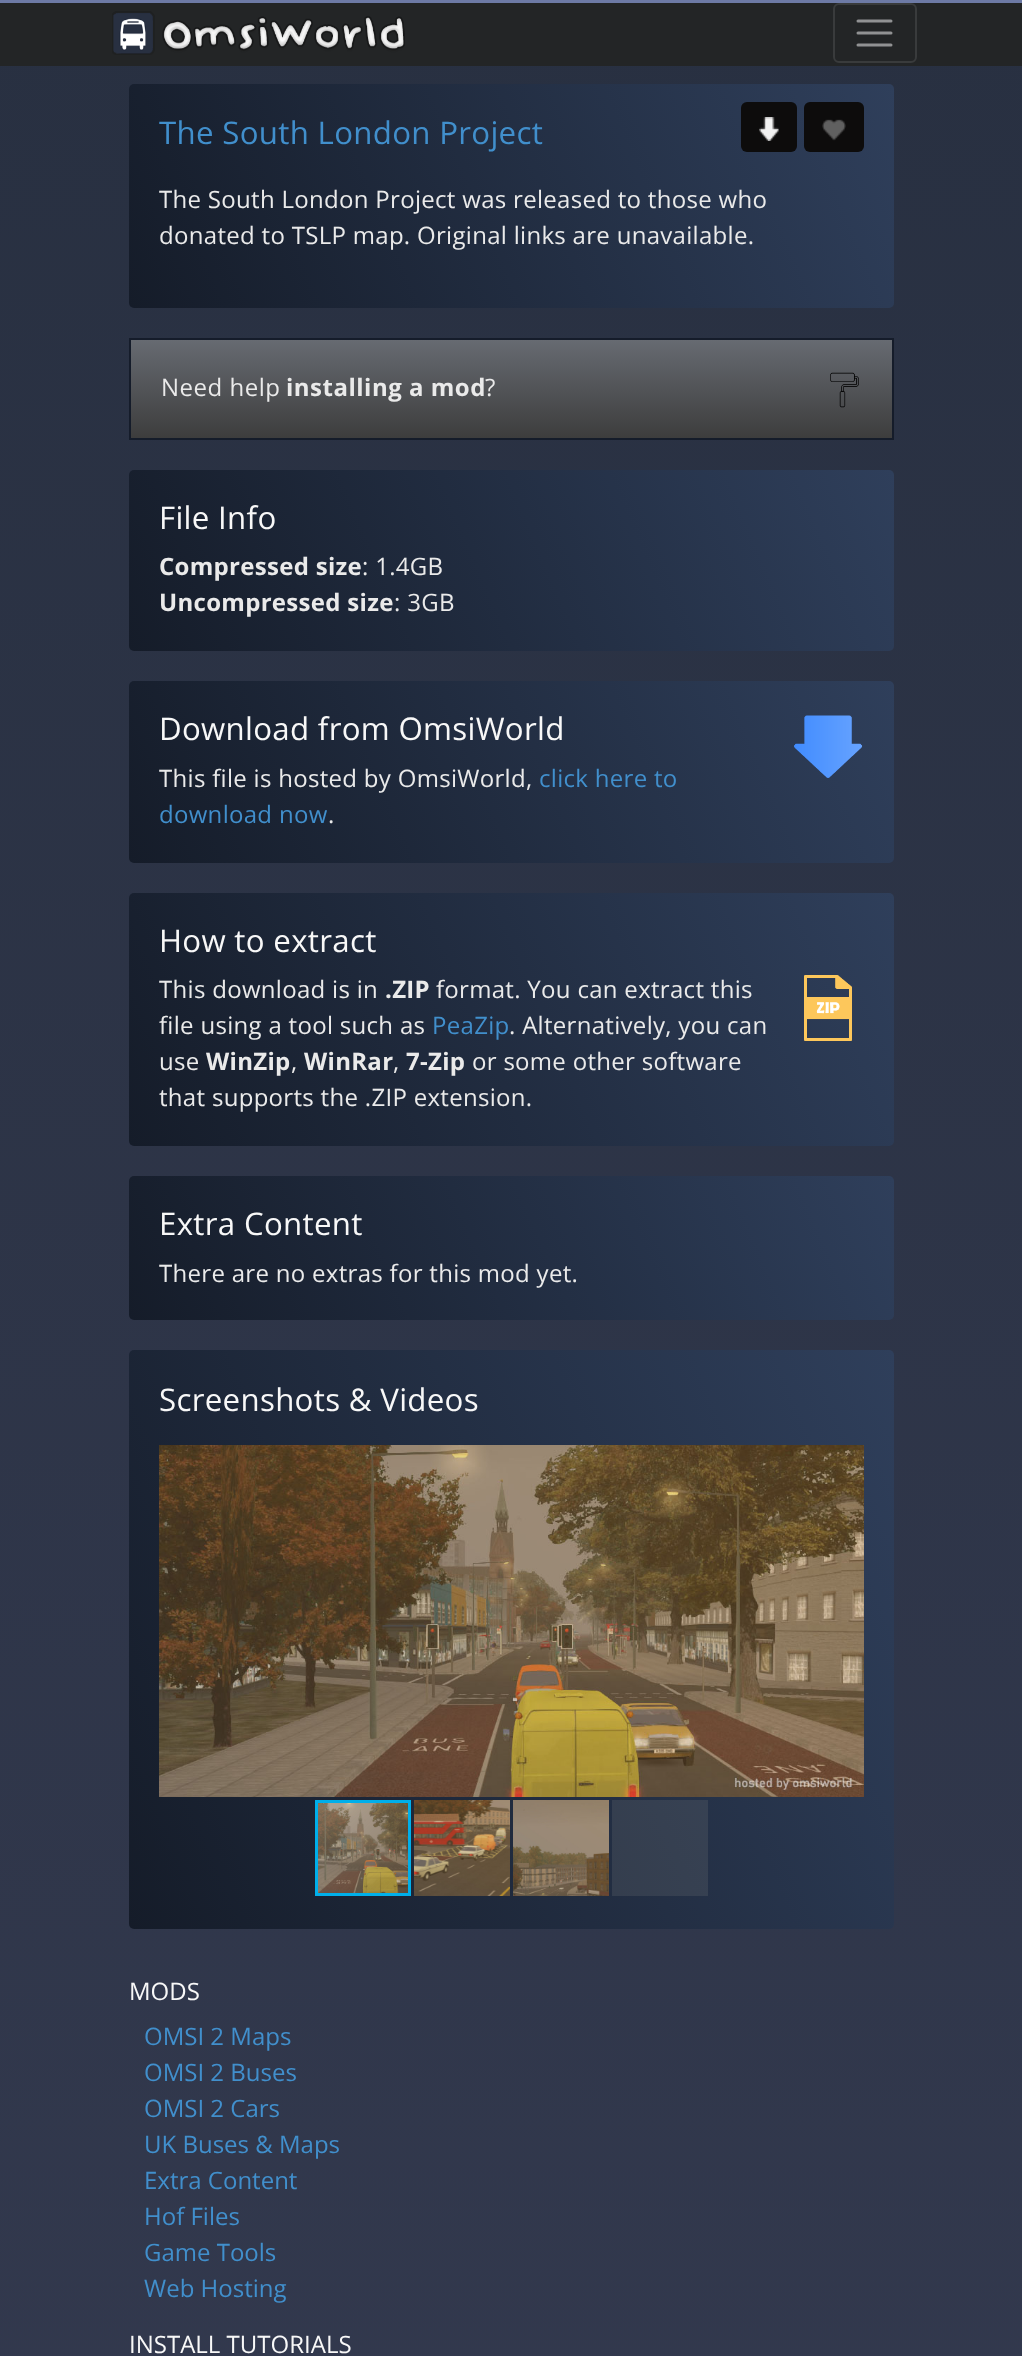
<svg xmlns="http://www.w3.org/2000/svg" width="1022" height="2356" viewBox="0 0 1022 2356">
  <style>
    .t1 { font: 31.25px Open Sans; letter-spacing: 0.3px; fill: #418fcc; }
    .t2 { font: 24px Open Sans; letter-spacing: 0.3px; fill: #eaeaea; }
    .t3 { font: 24px Open Sans; letter-spacing: 0.5px; fill: #eaeaea; }
    .t4 { font: bold 24px Open Sans; letter-spacing: 0.5px; fill: #eaeaea; }
    .t5 { font: 31.25px Open Sans; letter-spacing: 0.3px; fill: #f8f8f8; }
    .t6 { font: bold 24px Open Sans; letter-spacing: 0.3px; fill: #eaeaea; }
    .t7 { font: 24px Open Sans; letter-spacing: 0.3px; fill: #418fcc; }
    .t8 { font: 24px Open Sans; fill: #f8f8f8; }
    .t9 { font: 24px Open Sans; fill: #418fcc; }
  </style>
  <defs>
    <linearGradient id="g1" gradientUnits="userSpaceOnUse" x1="511" y1="0" x2="512" y2="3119"><stop offset="0" stop-color="#283041"/><stop offset="1" stop-color="#353b51"/></linearGradient>
    <linearGradient id="g2" gradientUnits="userSpaceOnUse" x1="147" y1="350" x2="876" y2="41"><stop offset="0" stop-color="#151c29"/><stop offset="1" stop-color="#2f3f5b"/></linearGradient>
    <linearGradient id="g3" gradientUnits="userSpaceOnUse" x1="512" y1="339" x2="512" y2="438"><stop offset="0" stop-color="#676b72"/><stop offset="1" stop-color="#3d3d3d"/></linearGradient>
    <linearGradient id="g4" gradientUnits="userSpaceOnUse" x1="155" y1="712" x2="868" y2="409"><stop offset="0" stop-color="#151c29"/><stop offset="1" stop-color="#2f3f5b"/></linearGradient>
    <linearGradient id="g5" gradientUnits="userSpaceOnUse" x1="155" y1="923" x2="868" y2="620"><stop offset="0" stop-color="#151c29"/><stop offset="1" stop-color="#2f3f5b"/></linearGradient>
    <linearGradient id="g6" gradientUnits="userSpaceOnUse" x1="142" y1="1176" x2="881" y2="862"><stop offset="0" stop-color="#151c29"/><stop offset="1" stop-color="#2f3f5b"/></linearGradient>
    <linearGradient id="g7" gradientUnits="userSpaceOnUse" x1="162" y1="1397" x2="861" y2="1099"><stop offset="0" stop-color="#151c29"/><stop offset="1" stop-color="#2f3f5b"/></linearGradient>
    <linearGradient id="g8" gradientUnits="userSpaceOnUse" x1="83" y1="1821" x2="940" y2="1458"><stop offset="0" stop-color="#151c29"/><stop offset="1" stop-color="#2f3f5b"/></linearGradient>
    <linearGradient id="g9" gradientUnits="userSpaceOnUse" x1="83" y1="1821" x2="940" y2="1458"><stop offset="0" stop-color="#2a303a"/><stop offset="1" stop-color="#3f4c62"/></linearGradient>
  </defs>
  <rect width="100%" height="100%" fill="#fff"/>
  <rect x="0" y="66" width="1022" height="2290" fill="url(#g1)"/>
  <rect x="0" y="0" width="1022" height="3" fill="#6d7aa5"/>
  <rect x="0" y="3" width="1022" height="63" fill="#232526"/>
  <image x="112" y="11" width="293" height="44" href="images/1.png"/>
  <rect x="834" y="4" width="82" height="58" rx="5" fill="none" stroke="#393b3c" stroke-width="2"/>
  <path d="M858 21H891M858 33H891M858 45H891" fill="none" stroke="#919293" stroke-width="3" stroke-linecap="round"/>
  <rect x="129" y="84" width="765" height="224" rx="5" fill="url(#g2)"/>
  <text x="159" y="144" class="t1">The South London Project</text>
  <rect x="741" y="102" width="56" height="50" rx="6" fill="#0d0c0c"/>
  <image x="759" y="117" width="20" height="24" href="images/2.png"/>
  <rect x="804" y="102" width="60" height="50" rx="6" fill="#0d0c0c"/>
  <image x="822" y="119" width="24" height="22" href="images/3.png"/>
  <text x="159" y="208" class="t2">The South London Project was released to those who</text>
  <text x="159" y="244" class="t2">donated to TSLP map. Original links are unavailable.</text>
  <rect x="131" y="340" width="761" height="98" fill="url(#g3)"/>
  <rect x="130" y="339" width="763" height="100" fill="none" stroke="#151c2a" stroke-width="2"/>
  <text x="161" y="396" class="t3">Need help</text>
  <text x="286" y="396" class="t4">installing a mod</text>
  <text x="485" y="396" class="t3">?</text>
  <image x="830" y="372" width="29" height="36" href="images/4.png"/>
  <rect x="129" y="470" width="765" height="181" rx="5" fill="url(#g4)"/>
  <text x="159" y="529" class="t5">File Info</text>
  <text x="159" y="575" class="t6">Compressed size</text>
  <text x="362" y="575" class="t2">: 1.4GB</text>
  <text x="159" y="611" class="t6">Uncompressed size</text>
  <text x="394" y="611" class="t2">: 3GB</text>
  <rect x="129" y="681" width="765" height="182" rx="5" fill="url(#g5)"/>
  <text x="159" y="740" class="t5">Download from OmsiWorld</text>
  <image x="794" y="715" width="69" height="63" href="images/5.png"/>
  <text x="159" y="787" class="t2">This file is hosted by OmsiWorld,</text>
  <text x="539" y="787" class="t7">click here to</text>
  <text x="159" y="823" class="t7">download now</text>
  <text x="328" y="823" class="t2">.</text>
  <rect x="129" y="893" width="765" height="253" rx="5" fill="url(#g6)"/>
  <text x="159" y="952" class="t5">How to extract</text>
  <text x="159" y="998" class="t2">This download is in</text>
  <text x="385" y="998" class="t6">.ZIP</text>
  <text x="436" y="998" class="t2">format. You can extract this</text>
  <image x="804" y="975" width="48" height="66" href="images/6.png"/>
  <text x="159" y="1034" class="t2">file using a tool such as</text>
  <text x="432" y="1034" class="t7">PeaZip</text>
  <text x="509" y="1034" class="t2">. Alternatively, you can</text>
  <text x="159" y="1070" class="t2">use</text>
  <text x="206" y="1070" class="t6">WinZip</text>
  <text x="291" y="1070" class="t2">,</text>
  <text x="304" y="1070" class="t6">WinRar</text>
  <text x="393" y="1070" class="t2">,</text>
  <text x="406" y="1070" class="t6">7-Zip</text>
  <text x="472" y="1070" class="t2">or some other software</text>
  <text x="159" y="1106" class="t2">that supports the .ZIP extension.</text>
  <rect x="129" y="1176" width="765" height="144" rx="5" fill="url(#g7)"/>
  <text x="159" y="1235" class="t5">Extra Content</text>
  <text x="159" y="1282" class="t2">There are no extras for this mod yet.</text>
  <rect x="129" y="1350" width="765" height="579" rx="5" fill="url(#g8)"/>
  <rect x="612" y="1800" width="96" height="96" fill="url(#g9)"/>
  <text x="159" y="1411" class="t5">Screenshots &amp; Videos</text>
  <image x="159" y="1445" width="705" height="352" href="images/7.png"/>
  <image x="318" y="1803" width="90" height="90" href="images/10.png"/>
  <rect x="316.5" y="1801.5" width="93" height="93" fill="none" stroke="#00afea" stroke-width="3"/>
  <image x="414" y="1800" width="96" height="96" href="images/8.png"/>
  <image x="513" y="1800" width="96" height="96" href="images/9.png"/>
  <text x="129" y="2000" class="t8">MODS</text>
  <text x="144" y="2045" class="t9">OMSI 2 Maps</text>
  <text x="144" y="2081" class="t9">OMSI 2 Buses</text>
  <text x="144" y="2117" class="t9">OMSI 2 Cars</text>
  <text x="144" y="2153" class="t9">UK Buses &amp; Maps</text>
  <text x="144" y="2189" class="t9">Extra Content</text>
  <text x="144" y="2225" class="t9">Hof Files</text>
  <text x="144" y="2261" class="t9">Game Tools</text>
  <text x="144" y="2297" class="t9">Web Hosting</text>
  <text x="129" y="2353" class="t8">INSTALL TUTORIALS</text>
</svg>
